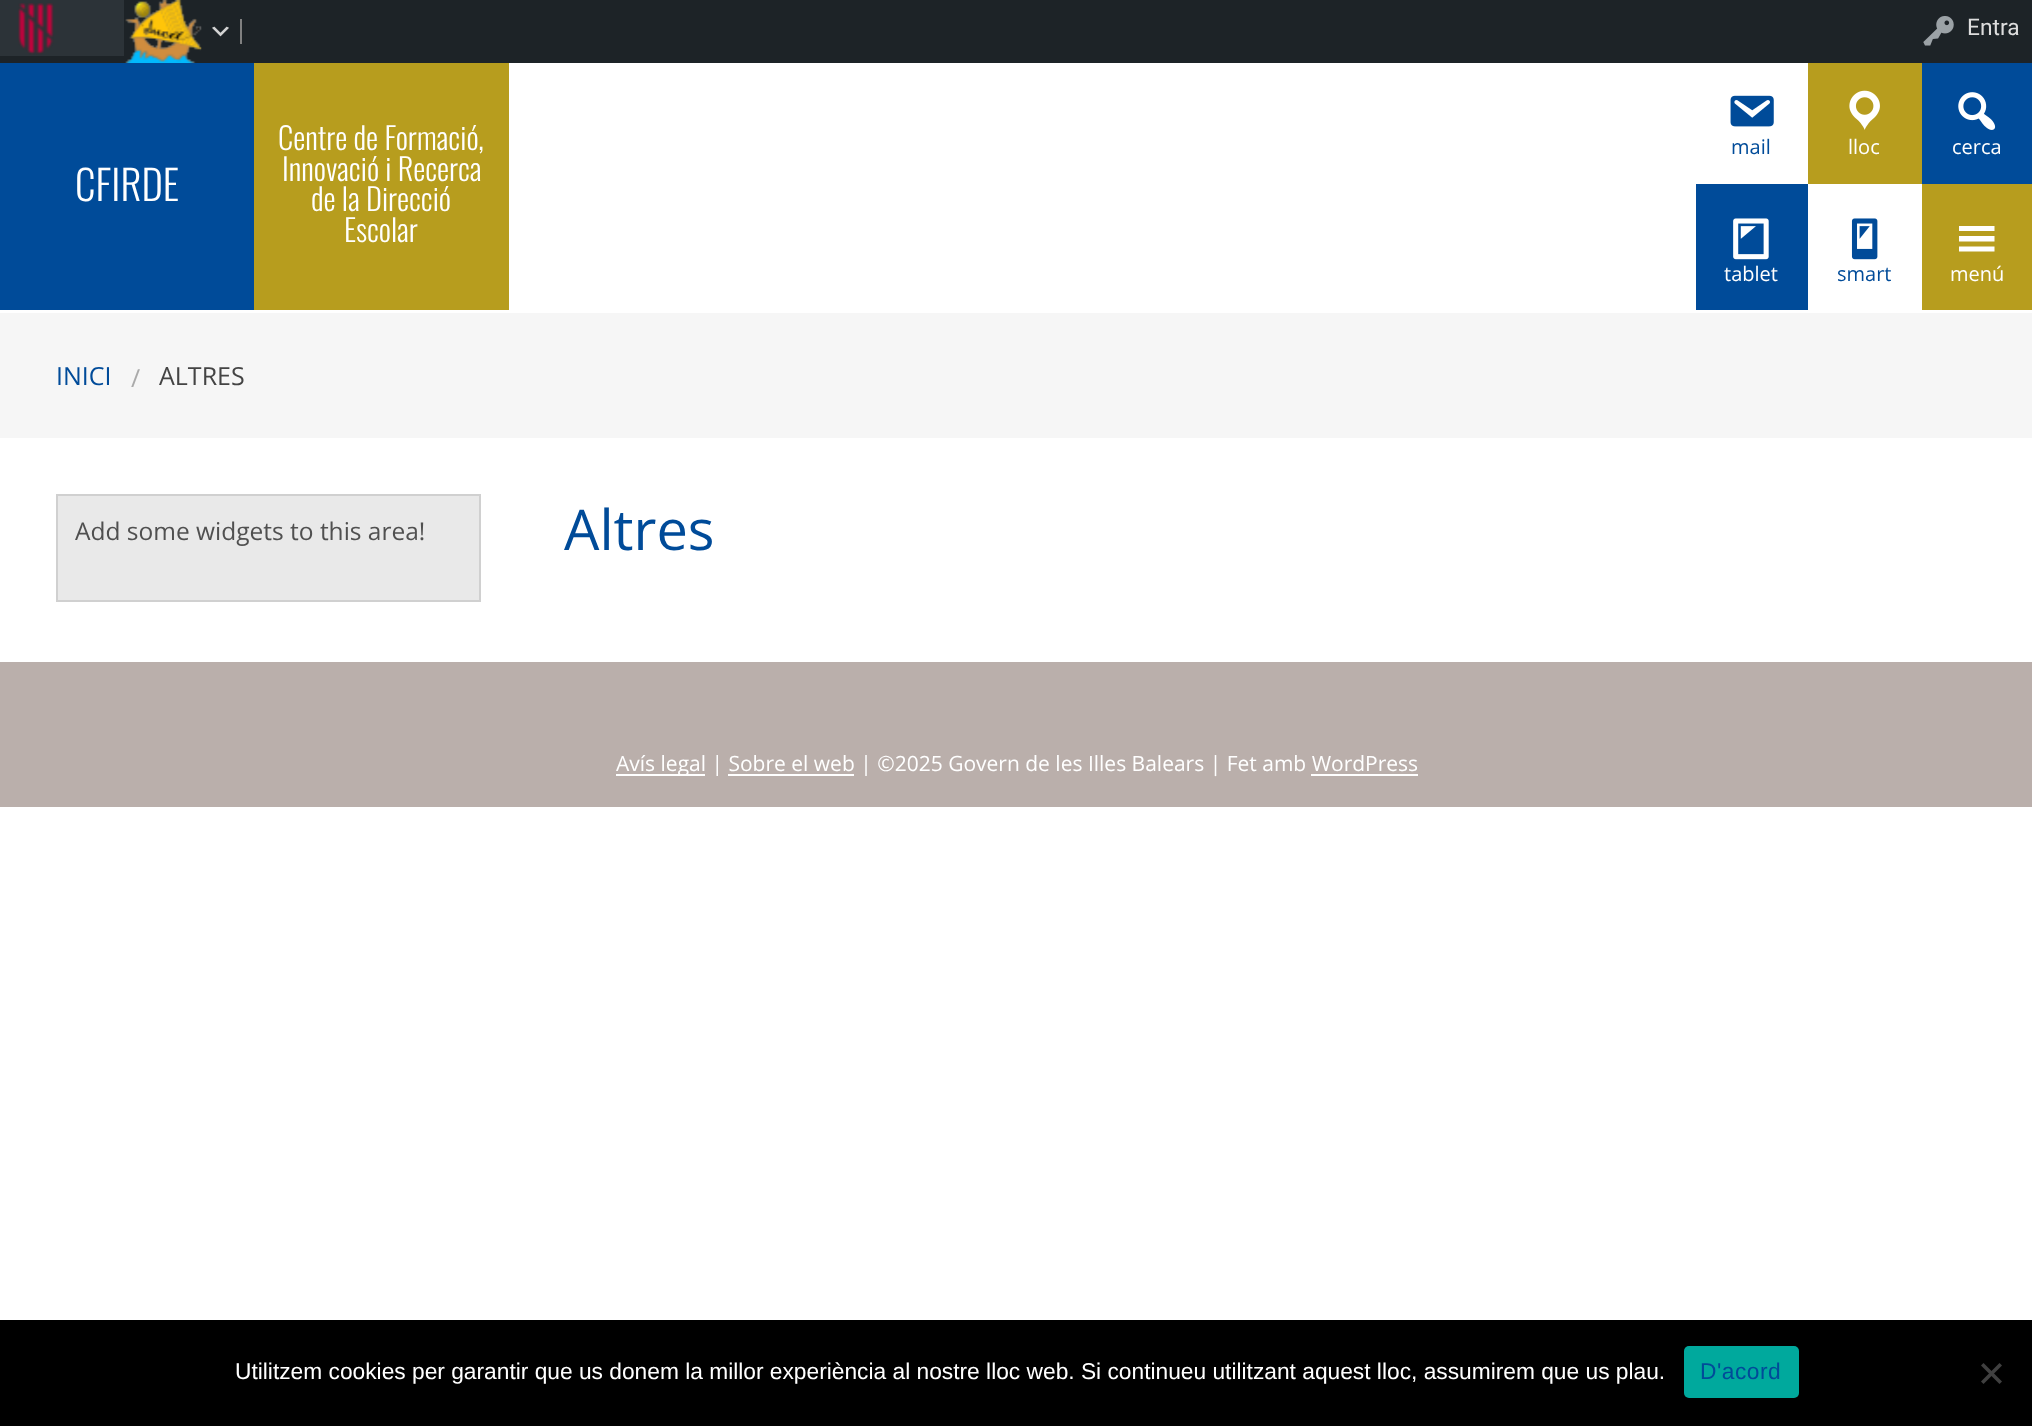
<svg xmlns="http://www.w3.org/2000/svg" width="2032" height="1426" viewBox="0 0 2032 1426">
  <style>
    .t1 { font: 22.75px Roboto; fill: #ddd; }
    .t2 { font: 300 41px Oswald; fill: #fff; }
    .t3 { font: 300 30.5px Oswald; fill: #fff; }
    .t4 { font: 20px Open Sans; fill: #004b99; }
    .t5 { font: 20px Open Sans; fill: #fff; }
    .t6 { font: 25px Open Sans; fill: #004b99; }
    .t7 { font: 25px Open Sans; fill: #aaa; }
    .t8 { font: 25px Open Sans; fill: #444; }
    .t9 { font: 24.5px Open Sans; fill: #505050; }
    .t10 { font: 56px Open Sans; fill: #004b99; }
    .t11 { font: 21px Open Sans; fill: #fff; }
    .t12 { font: 22.75px Liberation Sans; fill: #fff; }
    .t13 { font: 22.75px Liberation Sans; letter-spacing: 0.5px; fill: #004b99; }
  </style>
  <rect width="100%" height="100%" fill="#fff"/>
  <rect x="0" y="0" width="2032" height="63" fill="#1d2327"/>
  <rect x="0" y="0" width="124" height="56" fill="#2c3338"/>
  <image x="18" y="3" width="36" height="52" href="images/1.png"/>
  <image x="125" y="0" width="77" height="63" href="images/2.png"/>
  <rect x="240" y="19" width="2" height="25" fill="#808080"/>
  <image x="212" y="26" width="17" height="11" href="images/3.png"/>
  <image x="1923" y="16" width="31" height="30" href="images/4.png"/>
  <text x="1967" y="35" class="t1">Entra</text>
  <rect x="0" y="63" width="254" height="247" fill="#004b99"/>
  <text x="75" y="201" class="t2">CFIRDE</text>
  <rect x="254" y="63" width="255" height="247" fill="#b79d1e"/>
  <text x="278" y="150" class="t3">Centre de Formació,</text>
  <text x="282" y="181" class="t3">Innovació i Recerca</text>
  <text x="311" y="211" class="t3">de la Direcció</text>
  <text x="344" y="242" class="t3">Escolar</text>
  <image x="1730" y="95" width="44" height="32" href="images/5.png"/>
  <text x="1731" y="154" class="t4">mail</text>
  <rect x="1808" y="63" width="114" height="121" fill="#b79d1e"/>
  <image x="1849" y="90" width="31" height="40" href="images/6.png"/>
  <text x="1848" y="154" class="t5">lloc</text>
  <rect x="1922" y="63" width="110" height="121" fill="#004b99"/>
  <image x="1958" y="92" width="38" height="38" href="images/7.png"/>
  <text x="1952" y="154" class="t5">cerca</text>
  <rect x="1696" y="184" width="112" height="126" fill="#004b99"/>
  <image x="1733" y="218" width="36" height="42" href="images/8.png"/>
  <text x="1724" y="281" class="t5">tablet</text>
  <image x="1851" y="218" width="27" height="42" href="images/9.png"/>
  <text x="1837" y="281" class="t4">smart</text>
  <rect x="1922" y="184" width="110" height="126" fill="#b79d1e"/>
  <path d="M1959 251.5H1994.5V246.5H1959ZM1959 226V231H1994.5V226ZM1959 241.5H1994.5V236H1959Z" fill="#fff"/>
  <text x="1950" y="281" class="t5">menú</text>
  <rect x="0" y="313" width="2032" height="125" fill="#f6f6f6"/>
  <text x="56" y="385" class="t6">INICI</text>
  <text x="131" y="387" class="t7">/</text>
  <text x="159" y="385" class="t8">ALTRES</text>
  <rect x="57" y="495" width="423" height="106" fill="#e9e9e9" stroke="#d0d0d0" stroke-width="2"/>
  <text x="75" y="540" class="t9">Add some widgets to this area!</text>
  <text x="564" y="550" class="t10">Altres</text>
  <rect x="0" y="662" width="2032" height="145" fill="#baafab"/>
  <rect x="616" y="774" width="89" height="2" fill="#fff"/>
  <text x="616" y="771" class="t11">Avís legal | Sobre el web | ©2025 Govern de les Illes Balears | Fet amb WordPress</text>
  <rect x="728" y="774" width="126" height="2" fill="#fff"/>
  <rect x="1311" y="774" width="107" height="2" fill="#fff"/>
  <rect x="0" y="1320" width="2032" height="106" fill="#000"/>
  <text x="235" y="1379" class="t12">Utilitzem cookies per garantir que us donem la millor experiència al nostre lloc web. Si continueu utilitzant aquest lloc, assumirem que us plau.</text>
  <rect x="1684" y="1346" width="115" height="52" rx="5" fill="#00a99d"/>
  <text x="1700" y="1379" class="t13">D'acord</text>
  <path d="M1999.5 1363L2002 1365.5L1983.5 1384L1981 1381.5Z" fill="#404040"/>
  <path d="M1981 1365.5L1983.5 1363L2002 1381.5L1999.5 1384Z" fill="#404040"/>
</svg>
